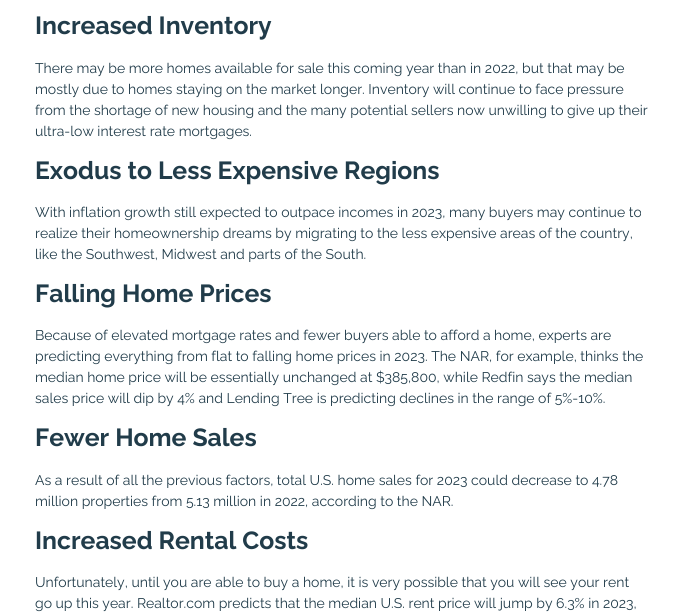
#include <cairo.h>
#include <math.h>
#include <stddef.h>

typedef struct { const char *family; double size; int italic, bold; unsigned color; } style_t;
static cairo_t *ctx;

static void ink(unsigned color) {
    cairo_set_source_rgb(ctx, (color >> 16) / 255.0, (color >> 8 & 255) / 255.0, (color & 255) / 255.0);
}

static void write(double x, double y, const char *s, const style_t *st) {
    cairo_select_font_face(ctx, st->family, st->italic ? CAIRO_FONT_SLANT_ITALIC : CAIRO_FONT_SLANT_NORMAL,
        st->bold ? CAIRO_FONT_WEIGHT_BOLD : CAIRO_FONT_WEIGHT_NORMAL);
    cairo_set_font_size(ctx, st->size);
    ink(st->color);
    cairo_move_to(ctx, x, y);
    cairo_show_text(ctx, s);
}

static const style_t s1 = {"Raleway", 24.75, 0, 1, 0x213c4a};
static const style_t s2 = {"Raleway", 14, 0, 0, 0x213c4a};

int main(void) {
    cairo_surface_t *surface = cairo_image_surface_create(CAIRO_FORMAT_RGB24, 683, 614);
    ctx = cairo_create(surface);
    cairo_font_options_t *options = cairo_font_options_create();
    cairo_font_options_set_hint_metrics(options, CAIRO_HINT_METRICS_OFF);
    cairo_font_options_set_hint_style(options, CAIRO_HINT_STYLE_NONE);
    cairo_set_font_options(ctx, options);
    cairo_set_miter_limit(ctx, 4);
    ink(0xffffff);
    cairo_paint(ctx);
    write(35, 34, "Increased Inventory", &s1);
    write(35, 73, "There may be more homes available for sale this coming year than in 2022, but that may be", &s2);
    write(35, 94, "mostly due to homes staying on the market longer. Inventory will continue to face pressure", &s2);
    write(35, 115, "from the shortage of new housing and the many potential sellers now unwilling to give up their", &s2);
    write(35, 136, "ultra-low interest rate mortgages.", &s2);
    write(35, 179, "Exodus to Less Expensive Regions", &s1);
    write(35, 217, "With inflation growth still expected to outpace incomes in 2023, many buyers may continue to", &s2);
    write(35, 238, "realize their homeownership dreams by migrating to the less expensive areas of the country,", &s2);
    write(35, 259, "like the Southwest, Midwest and parts of the South.", &s2);
    write(35, 302, "Falling Home Prices", &s1);
    write(35, 340, "Because of elevated mortgage rates and fewer buyers able to afford a home, experts are", &s2);
    write(35, 361, "predicting everything from flat to falling home prices in 2023. The NAR, for example, thinks the", &s2);
    write(35, 382, "median home price will be essentially unchanged at $385,800, while Redfin says the median", &s2);
    write(35, 403, "sales price will dip by 4% and Lending Tree is predicting declines in the range of 5%-10%.", &s2);
    write(35, 446, "Fewer Home Sales", &s1);
    write(35, 485, "As a result of all the previous factors, total U.S. home sales for 2023 could decrease to 4.78", &s2);
    write(35, 506, "million properties from 5.13 million in 2022, according to the NAR.", &s2);
    write(35, 549, "Increased Rental Costs", &s1);
    write(35, 587, "Unfortunately, until you are able to buy a home, it is very possible that you will see your rent", &s2);
    write(35, 608, "go up this year. Realtor.com predicts that the median U.S. rent price will jump by 6.3% in 2023,", &s2);
    cairo_surface_write_to_png(surface, "screenshot.png");
    cairo_font_options_destroy(options);
    cairo_destroy(ctx);
    cairo_surface_destroy(surface);
    return 0;
}
